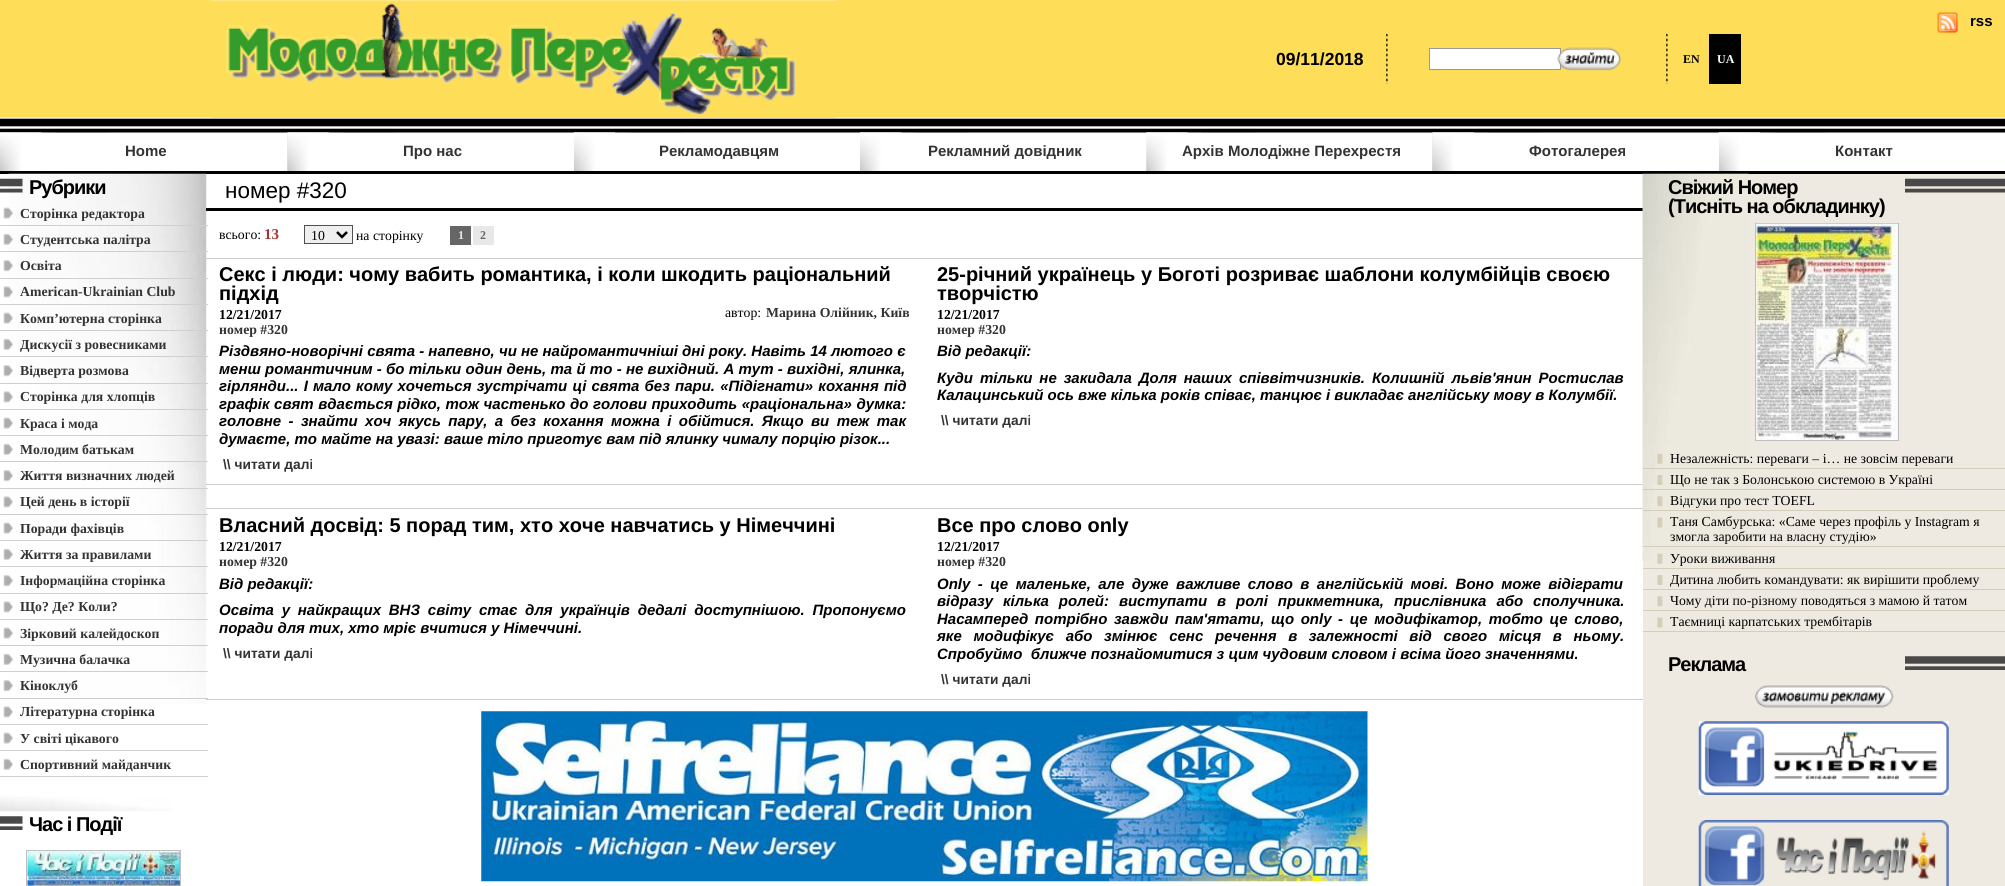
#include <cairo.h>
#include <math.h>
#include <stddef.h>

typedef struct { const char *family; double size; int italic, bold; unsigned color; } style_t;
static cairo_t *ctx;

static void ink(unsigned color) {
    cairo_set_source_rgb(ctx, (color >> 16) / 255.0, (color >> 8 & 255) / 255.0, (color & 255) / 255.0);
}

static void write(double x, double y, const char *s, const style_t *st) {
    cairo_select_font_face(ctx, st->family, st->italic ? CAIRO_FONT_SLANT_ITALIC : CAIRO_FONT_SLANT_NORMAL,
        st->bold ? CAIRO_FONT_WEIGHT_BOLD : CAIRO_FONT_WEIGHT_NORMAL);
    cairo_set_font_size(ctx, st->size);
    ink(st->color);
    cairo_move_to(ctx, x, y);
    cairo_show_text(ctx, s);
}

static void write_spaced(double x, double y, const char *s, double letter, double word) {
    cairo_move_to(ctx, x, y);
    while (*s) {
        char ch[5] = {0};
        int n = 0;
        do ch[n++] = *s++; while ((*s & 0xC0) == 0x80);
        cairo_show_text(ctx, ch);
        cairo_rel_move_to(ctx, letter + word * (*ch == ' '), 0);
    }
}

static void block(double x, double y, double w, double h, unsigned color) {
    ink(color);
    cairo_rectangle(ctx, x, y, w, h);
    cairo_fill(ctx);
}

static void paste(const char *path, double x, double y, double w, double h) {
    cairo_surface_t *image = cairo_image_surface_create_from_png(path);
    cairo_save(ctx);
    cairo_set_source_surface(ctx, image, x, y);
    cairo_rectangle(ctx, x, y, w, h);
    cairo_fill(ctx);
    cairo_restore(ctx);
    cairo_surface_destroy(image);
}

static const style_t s1 = {"Liberation Sans", 15, 0, 1, 0x000000};
static const style_t s2 = {"Liberation Sans", 17.5, 0, 1, 0x000000};
static const style_t s3 = {"Liberation Serif", 12, 0, 1, 0x000000};
static const style_t s4 = {"Liberation Serif", 12, 0, 1, 0xffffff};
static const style_t s5 = {"Liberation Sans", 15, 0, 1, 0x333333};
static const style_t s6 = {"Liberation Serif", 13.75, 0, 1, 0x333333};
static const style_t s7 = {"Liberation Sans", 22.5, 0, 0, 0x000000};
static const style_t s8 = {"Liberation Serif", 13.75, 0, 0, 0x000000};
static const style_t s9 = {"Liberation Serif", 15, 0, 1, 0xaf3030};
static const style_t s10 = {"Liberation Serif", 12, 0, 1, 0xe8e8e8};
static const style_t s11 = {"Liberation Serif", 12, 0, 1, 0x666666};
static const style_t s12 = {"Liberation Sans", 20, 0, 1, 0x000000};
static const style_t s13 = {"Liberation Serif", 13.75, 0, 1, 0x000000};
static const style_t s14 = {"Liberation Sans", 15, 1, 1, 0x000000};
static const style_t s15 = {"Liberation Sans", 13.75, 0, 1, 0x333333};

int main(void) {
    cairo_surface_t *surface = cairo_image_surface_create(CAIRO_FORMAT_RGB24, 2005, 886);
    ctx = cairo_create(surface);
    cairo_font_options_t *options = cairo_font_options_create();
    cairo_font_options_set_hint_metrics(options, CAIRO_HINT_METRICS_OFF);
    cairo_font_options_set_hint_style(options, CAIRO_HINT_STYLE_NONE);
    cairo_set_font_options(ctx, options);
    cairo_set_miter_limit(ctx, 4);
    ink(0xffffff);
    cairo_paint(ctx);
    block(0, 0, 2005, 118, 0xfede58);
    paste("pic1.png", 1937, 12, 21, 21);
    write(1970, 26, "rss", &s1);
    paste("pic6.png", 0, 117, 2005, 16);
    paste("pic2.png", 211, 0, 626, 118);
    paste("pic3.png", 211, 0, 626, 118);
    paste("pic4.png", 1386, 33, 2, 51);
    write(1276, 65, "09/11/2018", &s2);
    paste("pic4.png", 1666, 33, 2, 51);
    ink(0xffffff);
    cairo_rectangle(ctx, 1429.5, 48.5, 131, 21);
    cairo_fill_preserve(ctx);
    ink(0x999999);
    cairo_set_line_width(ctx, 1);
    cairo_stroke(ctx);
    paste("pic5.png", 1557, 47, 65, 24);
    write(1683, 63, "EN", &s3);
    block(1709, 34, 32, 50, 0x000000);
    write(1717, 63, "UA", &s4);
    paste("pic7.png", 0, 132, 109, 1);
    paste("pic8.png", 0, 132, 42, 39);
    write(125, 156, "Home", &s5);
    paste("pic9.png", 287, 132, 109, 39);
    paste("pic11.png", 573, 132, 109, 1);
    paste("pic12.png", 573, 132, 42, 39);
    block(573, 133, 1, 41, 0xffffff);
    block(328, 133, 68, 38, 0xffffff);
    paste("pic10.png", 287, 132, 42, 39);
    write(403, 156, "Про нас", &s5);
    write(659, 156, "Рекламодавцям", &s5);
    paste("pic7.png", 860, 132, 109, 1);
    paste("pic8.png", 860, 132, 42, 39);
    write(928, 156, "Рекламний довідник", &s5);
    paste("pic13.png", 1146, 132, 109, 1);
    paste("pic14.png", 1146, 132, 42, 39);
    write(1182, 156, "Архів Молодiжне Перехрестя", &s5);
    paste("pic15.png", 1432, 132, 109, 39);
    paste("pic11.png", 1718, 132, 109, 1);
    paste("pic17.png", 1718, 132, 42, 39);
    block(1718, 133, 1, 41, 0xffffff);
    block(1473, 133, 68, 38, 0xffffff);
    paste("pic16.png", 1432, 132, 42, 39);
    write(1529, 156, "Фотогалерея", &s5);
    block(0, 171, 2005, 3, 0x000000);
    write(1835, 156, "Контакт", &s5);
    paste("pic18.png", 8, 173, 199, 531);
    paste("pic19.png", 0, 178, 23, 15);
    cairo_set_font_size(ctx, 20);
    ink(0x000000);
    write_spaced(29, 194, "Рубрики", -1, 0);
    paste("pic20.png", 3, 207, 10, 12);
    write(20, 218, "Сторінка редактора", &s6);
    block(0, 225, 208, 1, 0xcfcfcf);
    paste("pic21.png", 3, 233, 10, 12);
    write(20, 244, "Студентська палітра", &s6);
    block(0, 251, 208, 1, 0xcfcfcf);
    paste("pic22.png", 3, 260, 10, 12);
    write(20, 270, "Освіта", &s6);
    block(0, 278, 208, 1, 0xcfcfcf);
    paste("pic23.png", 3, 286, 10, 12);
    write(20, 296, "American-Ukrainian Club", &s6);
    block(0, 304, 208, 1, 0xcfcfcf);
    paste("pic24.png", 3, 312, 10, 12);
    write(20, 323, "Комп’ютерна сторінка", &s6);
    block(0, 330, 208, 1, 0xcfcfcf);
    paste("pic25.png", 3, 338, 10, 12);
    write(20, 349, "Дискусії з ровесниками", &s6);
    block(0, 356, 208, 1, 0xcfcfcf);
    paste("pic26.png", 3, 365, 10, 12);
    write(20, 375, "Відверта розмова", &s6);
    block(0, 383, 208, 1, 0xcfcfcf);
    paste("pic27.png", 3, 391, 10, 12);
    write(20, 401, "Сторінка для хлопців", &s6);
    block(0, 409, 208, 1, 0xcfcfcf);
    paste("pic28.png", 3, 417, 10, 12);
    write(20, 428, "Краса і мода", &s6);
    block(0, 435, 208, 1, 0xcfcfcf);
    paste("pic29.png", 3, 443, 10, 12);
    write(20, 454, "Молодим батькам", &s6);
    block(0, 461, 208, 1, 0xcfcfcf);
    paste("pic26.png", 3, 470, 10, 12);
    write(20, 480, "Життя визначних людей", &s6);
    block(0, 488, 208, 1, 0xcfcfcf);
    paste("pic27.png", 3, 496, 10, 12);
    write(20, 506, "Цей день в історії", &s6);
    block(0, 514, 208, 1, 0xcfcfcf);
    paste("pic28.png", 3, 522, 10, 12);
    write(20, 533, "Поради фахівців", &s6);
    block(0, 540, 208, 1, 0xcfcfcf);
    paste("pic29.png", 3, 548, 10, 12);
    write(20, 559, "Життя за правилами", &s6);
    block(0, 566, 208, 1, 0xcfcfcf);
    paste("pic26.png", 3, 575, 10, 12);
    write(20, 585, "Інформаційна сторінка", &s6);
    block(0, 593, 208, 1, 0xcfcfcf);
    paste("pic27.png", 3, 601, 10, 12);
    write(20, 611, "Що? Де? Коли?", &s6);
    block(0, 619, 208, 1, 0xcfcfcf);
    paste("pic28.png", 3, 627, 10, 12);
    write(20, 638, "Зірковий калейдоскоп", &s6);
    block(0, 645, 208, 1, 0xcfcfcf);
    paste("pic29.png", 3, 653, 10, 12);
    write(20, 664, "Музична балачка", &s6);
    block(0, 671, 208, 1, 0xcfcfcf);
    paste("pic26.png", 3, 680, 10, 12);
    write(20, 690, "Кіноклуб", &s6);
    block(0, 698, 208, 1, 0xcfcfcf);
    paste("pic30.png", 3, 706, 10, 12);
    write(20, 716, "Літературна сторінка", &s6);
    block(0, 724, 208, 1, 0xcfcfcf);
    paste("pic31.png", 3, 732, 10, 12);
    write(20, 743, "У світі цікавого", &s6);
    block(0, 750, 208, 1, 0xcfcfcf);
    paste("pic32.png", 3, 758, 10, 12);
    write(20, 769, "Спортивний майданчик", &s6);
    block(0, 776, 208, 1, 0xcfcfcf);
    paste("pic33.png", 0, 796, 171, 16);
    paste("pic34.png", 0, 816, 23, 14);
    cairo_select_font_face(ctx, "Liberation Sans", CAIRO_FONT_SLANT_NORMAL, CAIRO_FONT_WEIGHT_BOLD);
    cairo_set_font_size(ctx, 20);
    ink(0x000000);
    write_spaced(29, 831, "Час i Події", -1, 0);
    cairo_rectangle(ctx, 26.5, 850.5, 154, 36);
    ink(0xbfbfbf);
    cairo_stroke(ctx);
    paste("pic35.png", 27, 851, 153, 35);
    block(206, 208, 1437, 3, 0x000000);
    write(225, 198, "номер #320", &s7);
    write(219, 239, "всього:", &s8);
    write(264, 239, "13", &s9);
    ink(0xefefef);
    cairo_rectangle(ctx, 304.5, 225.5, 48, 18);
    cairo_fill_preserve(ctx);
    ink(0x505050);
    cairo_stroke(ctx);
    cairo_new_path(ctx);
    cairo_move_to(ctx, 337, 232);
    cairo_line_to(ctx, 342, 237);
    cairo_line_to(ctx, 347, 232);
    ink(0x000000);
    cairo_set_line_width(ctx, 2.5);
    cairo_stroke(ctx);
    write(311, 240, "10", &s8);
    write(356, 240, "на сторінку", &s8);
    block(450, 226, 21, 19, 0x666666);
    write(458, 239, "1", &s10);
    block(473, 226, 21, 19, 0xe8e8e8);
    write(480, 239, "2", &s11);
    write(219, 281, "Секс і люди: чому вабить романтика, і коли шкодить раціональний", &s12);
    write(219, 300, "підхід", &s12);
    write(219, 319, "12/21/2017", &s13);
    write(219, 334, "номер #320", &s6);
    write(725, 317, "автор:", &s8);
    write(766, 317, "Марина Олійник, Київ", &s6);
    write(219, 356, "Різдвяно-новорічні свята - напевно, чи не найромантичніші дні року. Навіть 14 лютого є", &s14);
    write_spaced(219, 374, "менш романтичним - бо тільки один день, та й то - не вихідний. А тут - вихідні, ялинка,", 0, 0.1);
    write_spaced(219, 391, "гірлянди... І мало кому хочеться зустрічати ці свята без пари. «Підігнати» кохання під", 0, 1);
    write_spaced(219, 409, "графік свят вдається рідко, тож частенько до голови приходить «раціональна» думка:", 0, 0.4);
    write_spaced(219, 426, "головне - знайти хоч якусь пару, а без кохання можна і обійтися. Якщо ви теж так", 0, 3.25);
    write(219, 444, "думаєте, то майте на увазі: ваше тіло приготує вам під ялинку чималу порцію різок...", &s14);
    write(223, 469, "\\\\ читати далi", &s15);
    block(206, 258, 1438, 1, 0xcccccc);
    write(937, 281, "25-річний українець у Боготі розриває шаблони колумбійців своєю", &s12);
    write(937, 300, "творчістю", &s12);
    write(937, 319, "12/21/2017", &s13);
    write(937, 334, "номер #320", &s6);
    write(937, 356, "Від редакції:", &s14);
    write_spaced(937, 383, "Куди тільки не закидала Доля наших співвітчизників. Колишній львів'янин Ростислав", 0, 2.75);
    write(937, 400, "Калацинський ось вже кілька років співає, танцює і викладає англійську мову в Колумбії.", &s14);
    write(941, 425, "\\\\ читати далi", &s15);
    block(206, 484, 1438, 1, 0xcccccc);
    write(219, 532, "Власний досвід: 5 порад тим, хто хоче навчатись у Німеччині", &s12);
    write(219, 551, "12/21/2017", &s13);
    write(219, 566, "номер #320", &s6);
    write(219, 589, "Від редакції:", &s14);
    write_spaced(219, 615, "Освіта у найкращих ВНЗ світу стає для українців дедалі доступнішою. Пропонуємо", 0, 3.6);
    write(219, 633, "поради для тих, хто мріє вчитися у Німеччині.", &s14);
    write(223, 658, "\\\\ читати далi", &s15);
    block(206, 508, 1438, 1, 0xcccccc);
    write(937, 532, "Все про слово only", &s12);
    write(937, 551, "12/21/2017", &s13);
    write(937, 566, "номер #320", &s6);
    cairo_select_font_face(ctx, "Liberation Sans", CAIRO_FONT_SLANT_ITALIC, CAIRO_FONT_WEIGHT_BOLD);
    cairo_set_font_size(ctx, 15);
    ink(0x000000);
    write_spaced(937, 589, "Only - це маленьке, але дуже важливе слово в англійській мові. Воно може відіграти", 0, 3.25);
    write_spaced(937, 606, "відразу кілька ролей: виступати в ролі прикметника, прислівника або сполучника.", 0, 5.75);
    write_spaced(937, 624, "Насамперед потрібно завжди пам'ятати, що only - це модифікатор, тобто це слово,", 0, 2.4);
    write_spaced(937, 641, "яке модифікує або змінює сенс речення в залежності від свого місця в ньому.", 0, 7.5);
    write(937, 659, "Спробуймо  ближче познайомитися з цим чудовим словом і всіма його значеннями.", &s14);
    write(941, 684, "\\\\ читати далi", &s15);
    block(206, 699, 1438, 1, 0xcccccc);
    paste("pic36.png", 481, 711, 887, 171);
    block(1643, 174, 362, 712, 0xeeeae1);
    paste("pic37.png", 1642, 173, 107, 389);
    cairo_set_font_size(ctx, 20);
    ink(0x000000);
    write_spaced(1668, 194, "Свіжий Номер", -1, 0);
    write_spaced(1668, 213, "(Тисніть на обкладинку)", -1, 0);
    paste("pic38.png", 1905, 178, 100, 15);
    cairo_rectangle(ctx, 1755.5, 223.5, 143, 217);
    ink(0xbfbfbf);
    cairo_set_line_width(ctx, 1);
    cairo_stroke(ctx);
    paste("pic39.png", 1756, 223, 142, 217);
    paste("pic40.png", 1657, 453, 6, 11);
    block(1643, 468, 362, 1, 0xd4cdb9);
    write(1670, 463, "Незалежність: переваги – і… не зовсім переваги", &s8);
    paste("pic41.png", 1657, 475, 6, 10);
    block(1643, 489, 362, 1, 0xd4cdb9);
    write(1670, 484, "Що не так з Болонською системою в Україні", &s8);
    paste("pic42.png", 1657, 496, 6, 11);
    block(1643, 510, 362, 1, 0xd4cdb9);
    write(1670, 505, "Відгуки про тест TOEFL", &s8);
    paste("pic43.png", 1657, 517, 6, 11);
    block(1643, 546, 362, 1, 0xd4cdb9);
    write(1670, 526, "Таня Самбурська: «Саме через профіль у Instagram я", &s8);
    write(1670, 541, "змогла заробити на власну студію»", &s8);
    paste("pic44.png", 1657, 553, 6, 11);
    block(1643, 568, 362, 1, 0xd4cdb9);
    write(1670, 563, "Уроки виживання", &s8);
    paste("pic45.png", 1657, 575, 6, 10);
    block(1643, 589, 362, 1, 0xd4cdb9);
    write(1670, 584, "Дитина любить командувати: як вирішити проблему", &s8);
    paste("pic46.png", 1657, 596, 6, 11);
    block(1643, 610, 362, 1, 0xd4cdb9);
    write(1670, 605, "Чому діти по-різному поводяться з мамою й татом", &s8);
    paste("pic47.png", 1657, 617, 6, 11);
    block(1643, 631, 362, 1, 0xd4cdb9);
    write(1670, 626, "Таємниці карпатських трембітарів", &s8);
    cairo_select_font_face(ctx, "Liberation Sans", CAIRO_FONT_SLANT_NORMAL, CAIRO_FONT_WEIGHT_BOLD);
    cairo_set_font_size(ctx, 20);
    write_spaced(1668, 671, "Реклама", -1, 0);
    paste("pic48.png", 1905, 656, 100, 14);
    paste("pic49.png", 1755, 685, 139, 23);
    paste("pic50.png", 1698, 721, 251, 74);
    paste("pic51.png", 1698, 820, 251, 66);
    cairo_surface_write_to_png(surface, "screenshot.png");
    cairo_font_options_destroy(options);
    cairo_destroy(ctx);
    cairo_surface_destroy(surface);
    return 0;
}
